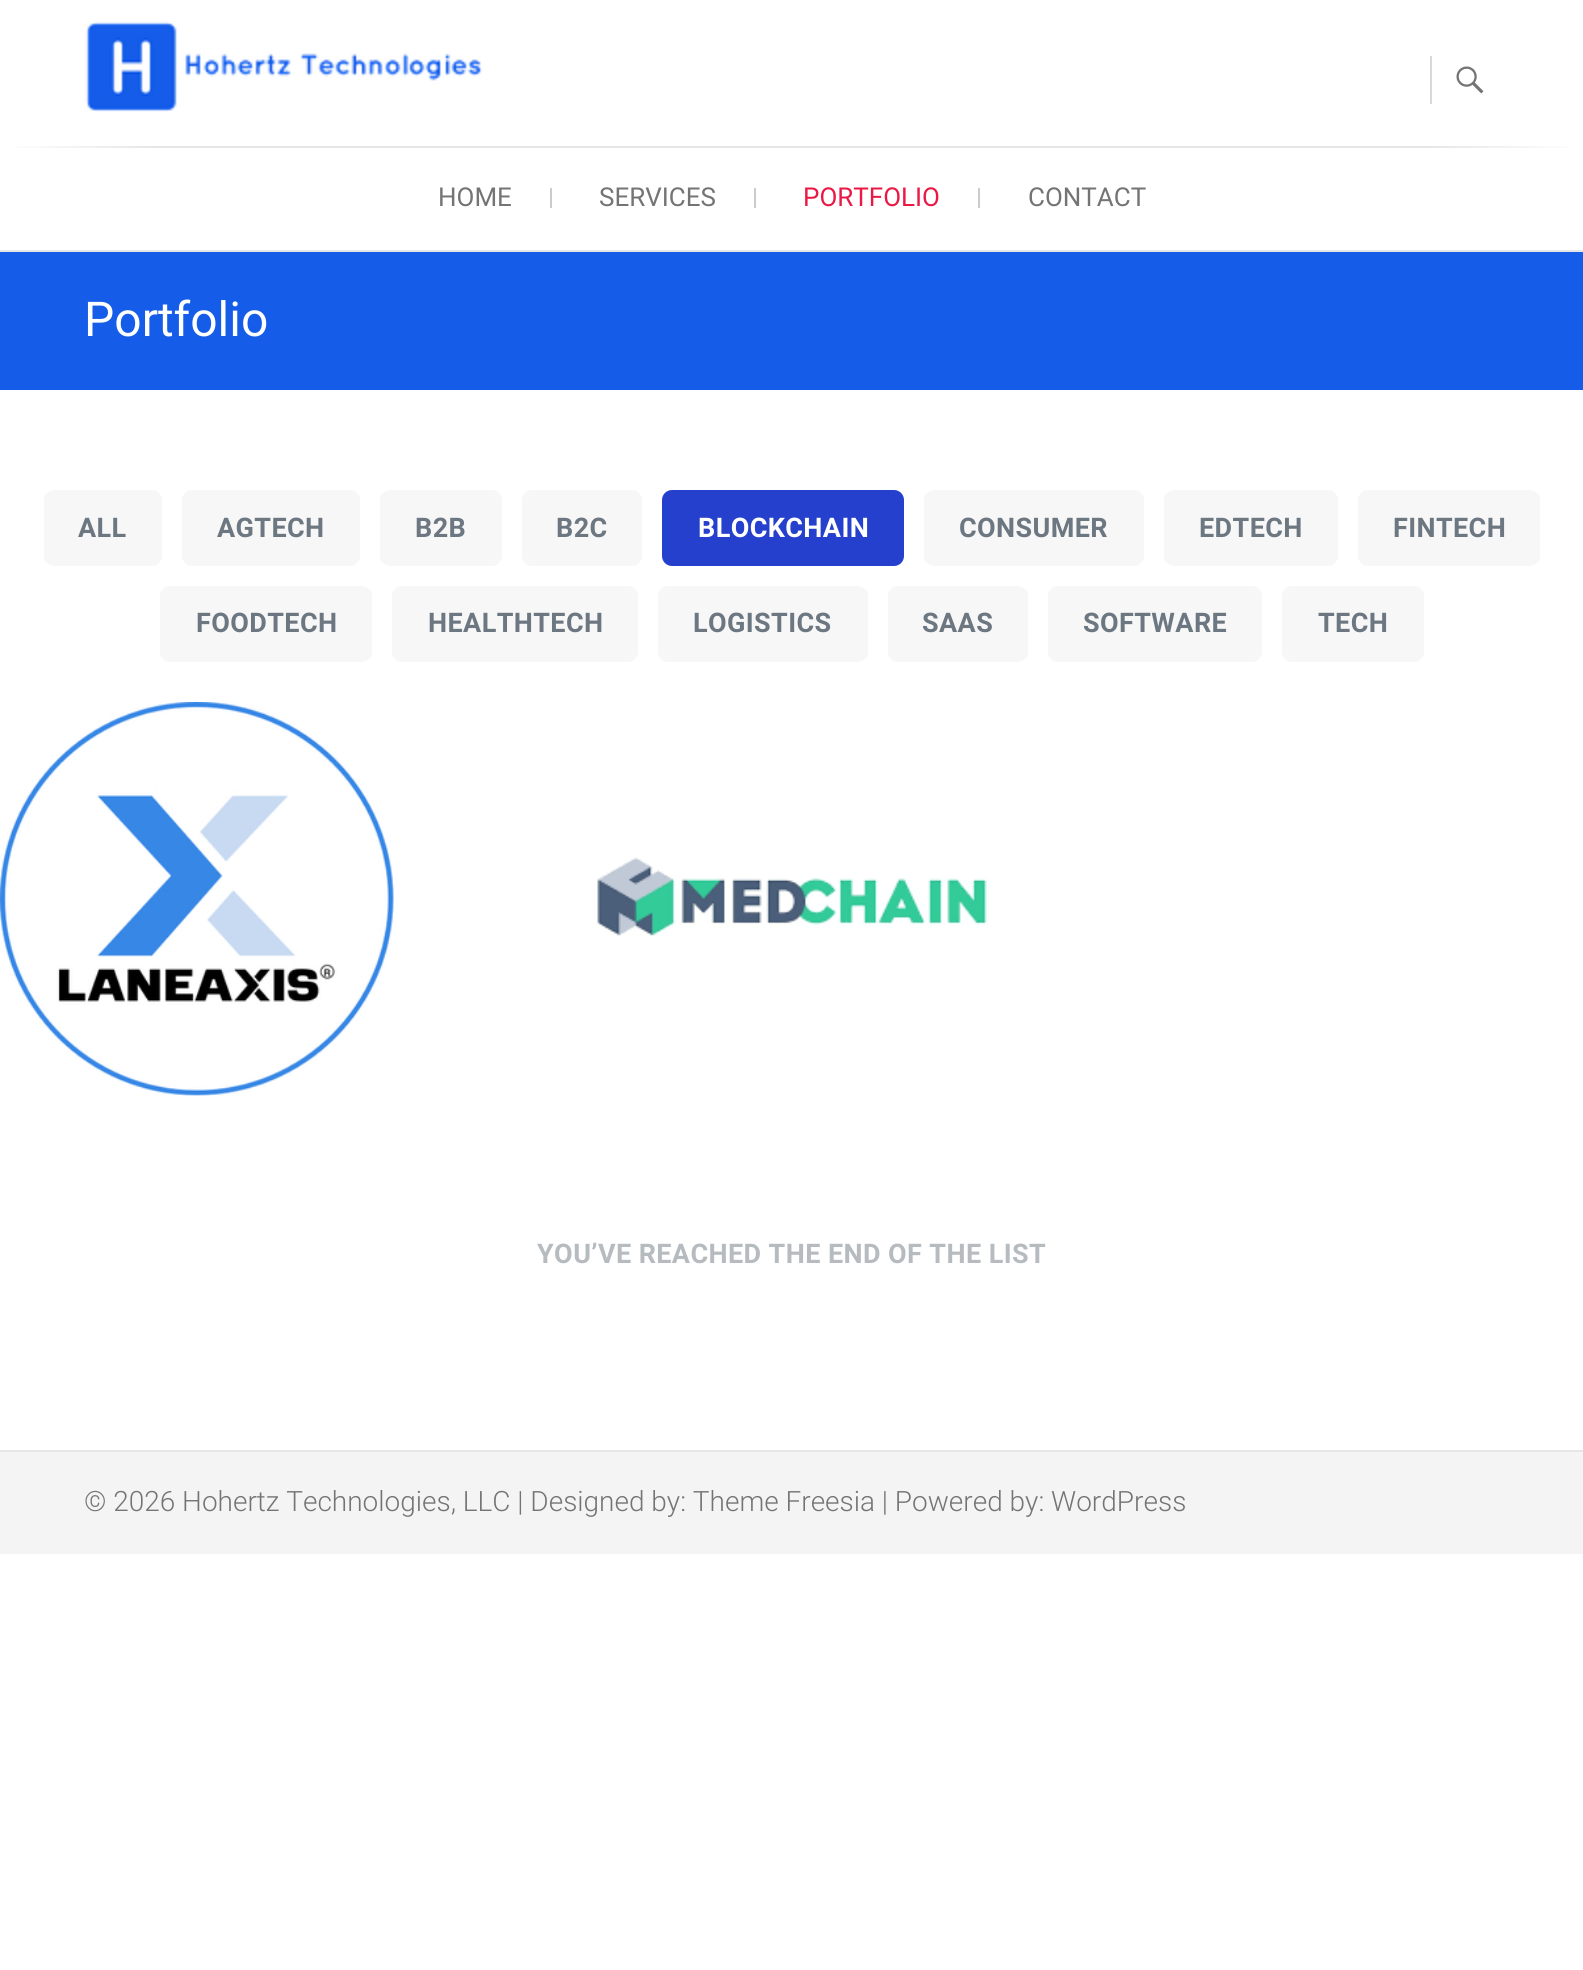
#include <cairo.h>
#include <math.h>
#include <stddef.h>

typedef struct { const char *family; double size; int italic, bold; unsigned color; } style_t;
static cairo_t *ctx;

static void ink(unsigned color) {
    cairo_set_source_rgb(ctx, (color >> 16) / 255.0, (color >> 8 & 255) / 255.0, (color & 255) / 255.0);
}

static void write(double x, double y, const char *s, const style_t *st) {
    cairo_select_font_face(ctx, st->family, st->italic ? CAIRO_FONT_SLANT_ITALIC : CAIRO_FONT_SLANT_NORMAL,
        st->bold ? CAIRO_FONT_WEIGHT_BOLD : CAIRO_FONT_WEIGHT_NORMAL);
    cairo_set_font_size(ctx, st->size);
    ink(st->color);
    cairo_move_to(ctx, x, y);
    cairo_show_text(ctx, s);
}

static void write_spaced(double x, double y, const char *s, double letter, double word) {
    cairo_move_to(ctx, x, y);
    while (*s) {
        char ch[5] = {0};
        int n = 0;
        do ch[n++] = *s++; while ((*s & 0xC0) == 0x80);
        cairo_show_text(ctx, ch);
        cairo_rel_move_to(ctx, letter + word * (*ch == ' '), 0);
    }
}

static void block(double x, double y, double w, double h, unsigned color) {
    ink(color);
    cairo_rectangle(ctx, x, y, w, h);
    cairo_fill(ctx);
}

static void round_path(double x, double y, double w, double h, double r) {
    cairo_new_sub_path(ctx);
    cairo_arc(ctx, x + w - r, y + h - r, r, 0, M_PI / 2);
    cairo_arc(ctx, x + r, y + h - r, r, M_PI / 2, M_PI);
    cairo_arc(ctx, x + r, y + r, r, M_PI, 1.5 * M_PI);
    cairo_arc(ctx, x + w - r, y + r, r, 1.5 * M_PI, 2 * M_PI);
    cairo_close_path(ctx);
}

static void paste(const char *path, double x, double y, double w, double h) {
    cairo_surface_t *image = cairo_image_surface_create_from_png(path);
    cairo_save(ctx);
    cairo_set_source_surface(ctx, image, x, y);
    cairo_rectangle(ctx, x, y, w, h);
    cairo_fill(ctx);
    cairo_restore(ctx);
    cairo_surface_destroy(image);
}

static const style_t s1 = {"Roboto", 26, 0, 0, 0x747474};
static const style_t s2 = {"Roboto", 26, 0, 0, 0xe91844};
static const style_t s3 = {"Roboto", 48, 0, 0, 0xffffff};
static const style_t s4 = {"Roboto Light", 28, 0, 0, 0x747474};

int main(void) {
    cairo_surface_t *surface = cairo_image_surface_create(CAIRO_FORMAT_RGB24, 1583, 1970);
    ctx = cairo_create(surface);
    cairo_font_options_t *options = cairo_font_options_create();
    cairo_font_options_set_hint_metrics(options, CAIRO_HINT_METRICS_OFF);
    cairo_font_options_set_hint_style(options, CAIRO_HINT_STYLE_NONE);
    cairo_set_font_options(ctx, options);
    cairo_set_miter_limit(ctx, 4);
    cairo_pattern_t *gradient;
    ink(0xffffff);
    cairo_paint(ctx);
    paste("pic1.png", 85, 21, 398, 91);
    block(1430, 56, 2, 48, 0xd9d9d9);
    paste("pic2.png", 1456, 66, 28, 28);
    block(0, 250, 1583, 2, 0xe6e6e6);
    gradient = cairo_pattern_create_linear(0, 147, 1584, 147);
    cairo_pattern_add_color_stop_rgba(gradient, 0, 1, 1, 1, 1);
    cairo_pattern_add_color_stop_rgba(gradient, 0.1, 0.902, 0.902, 0.902, 1);
    cairo_pattern_add_color_stop_rgba(gradient, 0.9, 0.902, 0.902, 0.902, 1);
    cairo_pattern_add_color_stop_rgba(gradient, 1, 1, 1, 1, 1);
    cairo_set_source(ctx, gradient);
    cairo_pattern_destroy(gradient);
    cairo_rectangle(ctx, 16, 146, 1552, 2);
    cairo_fill(ctx);
    write(438, 206, "HOME", &s1);
    block(550, 188, 2, 20, 0xcccccc);
    write(599, 206, "SERVICES", &s1);
    block(754, 188, 2, 20, 0xcccccc);
    write(803, 206, "PORTFOLIO", &s2);
    block(978, 188, 2, 20, 0xcccccc);
    write(1028, 206, "CONTACT", &s1);
    block(0, 252, 1583, 138, 0x155de9);
    write(84, 336, "Portfolio", &s3);
    ink(0xf7f7f7);
    round_path(44, 490, 118, 76, 10);
    cairo_fill(ctx);
    cairo_select_font_face(ctx, "Roboto", CAIRO_FONT_SLANT_NORMAL, CAIRO_FONT_WEIGHT_BOLD);
    cairo_set_font_size(ctx, 27);
    ink(0x6c7781);
    write_spaced(78, 537, "ALL", 0.4, 0);
    ink(0xf7f7f7);
    round_path(182, 490, 178, 76, 10);
    cairo_fill(ctx);
    ink(0x6c7781);
    write_spaced(217, 537, "AGTECH", 0.4, 0);
    ink(0xf7f7f7);
    round_path(380, 490, 122, 76, 10);
    cairo_fill(ctx);
    ink(0x6c7781);
    write_spaced(415, 537, "B2B", 0.4, 0);
    ink(0xf7f7f7);
    round_path(522, 490, 120, 76, 10);
    cairo_fill(ctx);
    ink(0x6c7781);
    write_spaced(556, 537, "B2C", 0.4, 0);
    ink(0x2540cc);
    round_path(662, 490, 242, 76, 10);
    cairo_fill(ctx);
    ink(0xffffff);
    write_spaced(698, 537, "BLOCKCHAIN", 0.4, 0);
    ink(0xf7f7f7);
    round_path(924, 490, 220, 76, 10);
    cairo_fill(ctx);
    ink(0x6c7781);
    write_spaced(959, 537, "CONSUMER", 0.4, 0);
    ink(0xf7f7f7);
    round_path(1164, 490, 174, 76, 10);
    cairo_fill(ctx);
    ink(0x6c7781);
    write_spaced(1199, 537, "EDTECH", 0.4, 0);
    ink(0xf7f7f7);
    round_path(1358, 490, 182, 76, 10);
    cairo_fill(ctx);
    ink(0x6c7781);
    write_spaced(1393, 537, "FINTECH", 0.4, 0);
    ink(0xf7f7f7);
    round_path(160, 586, 212, 76, 10);
    cairo_fill(ctx);
    ink(0x6c7781);
    write_spaced(196, 632, "FOODTECH", 0.4, 0);
    ink(0xf7f7f7);
    round_path(392, 586, 246, 76, 10);
    cairo_fill(ctx);
    ink(0x6c7781);
    write_spaced(428, 632, "HEALTHTECH", 0.4, 0);
    ink(0xf7f7f7);
    round_path(658, 586, 210, 76, 10);
    cairo_fill(ctx);
    ink(0x6c7781);
    write_spaced(693, 632, "LOGISTICS", 0.4, 0);
    ink(0xf7f7f7);
    round_path(888, 586, 140, 76, 10);
    cairo_fill(ctx);
    ink(0x6c7781);
    write_spaced(922, 632, "SAAS", 0.4, 0);
    ink(0xf7f7f7);
    round_path(1048, 586, 214, 76, 10);
    cairo_fill(ctx);
    ink(0x6c7781);
    write_spaced(1083, 632, "SOFTWARE", 0.4, 0);
    ink(0xf7f7f7);
    round_path(1282, 586, 142, 76, 10);
    cairo_fill(ctx);
    ink(0x6c7781);
    write_spaced(1318, 632, "TECH", 0.4, 0);
    paste("pic3.png", 0, 702, 394, 394);
    paste("pic4.png", 597, 857, 392, 79);
    ink(0xb6bbc0);
    write_spaced(537, 1263, "YOU’VE REACHED THE END OF THE LIST", 0.4, 0);
    block(0, 1450, 1583, 2, 0xe6e6e6);
    block(0, 1452, 1583, 102, 0xf4f4f4);
    write(84, 1511, "© 2026 Hohertz Technologies, LLC | Designed by: Theme Freesia | Powered by: WordPress", &s4);
    cairo_surface_write_to_png(surface, "screenshot.png");
    cairo_font_options_destroy(options);
    cairo_destroy(ctx);
    cairo_surface_destroy(surface);
    return 0;
}
